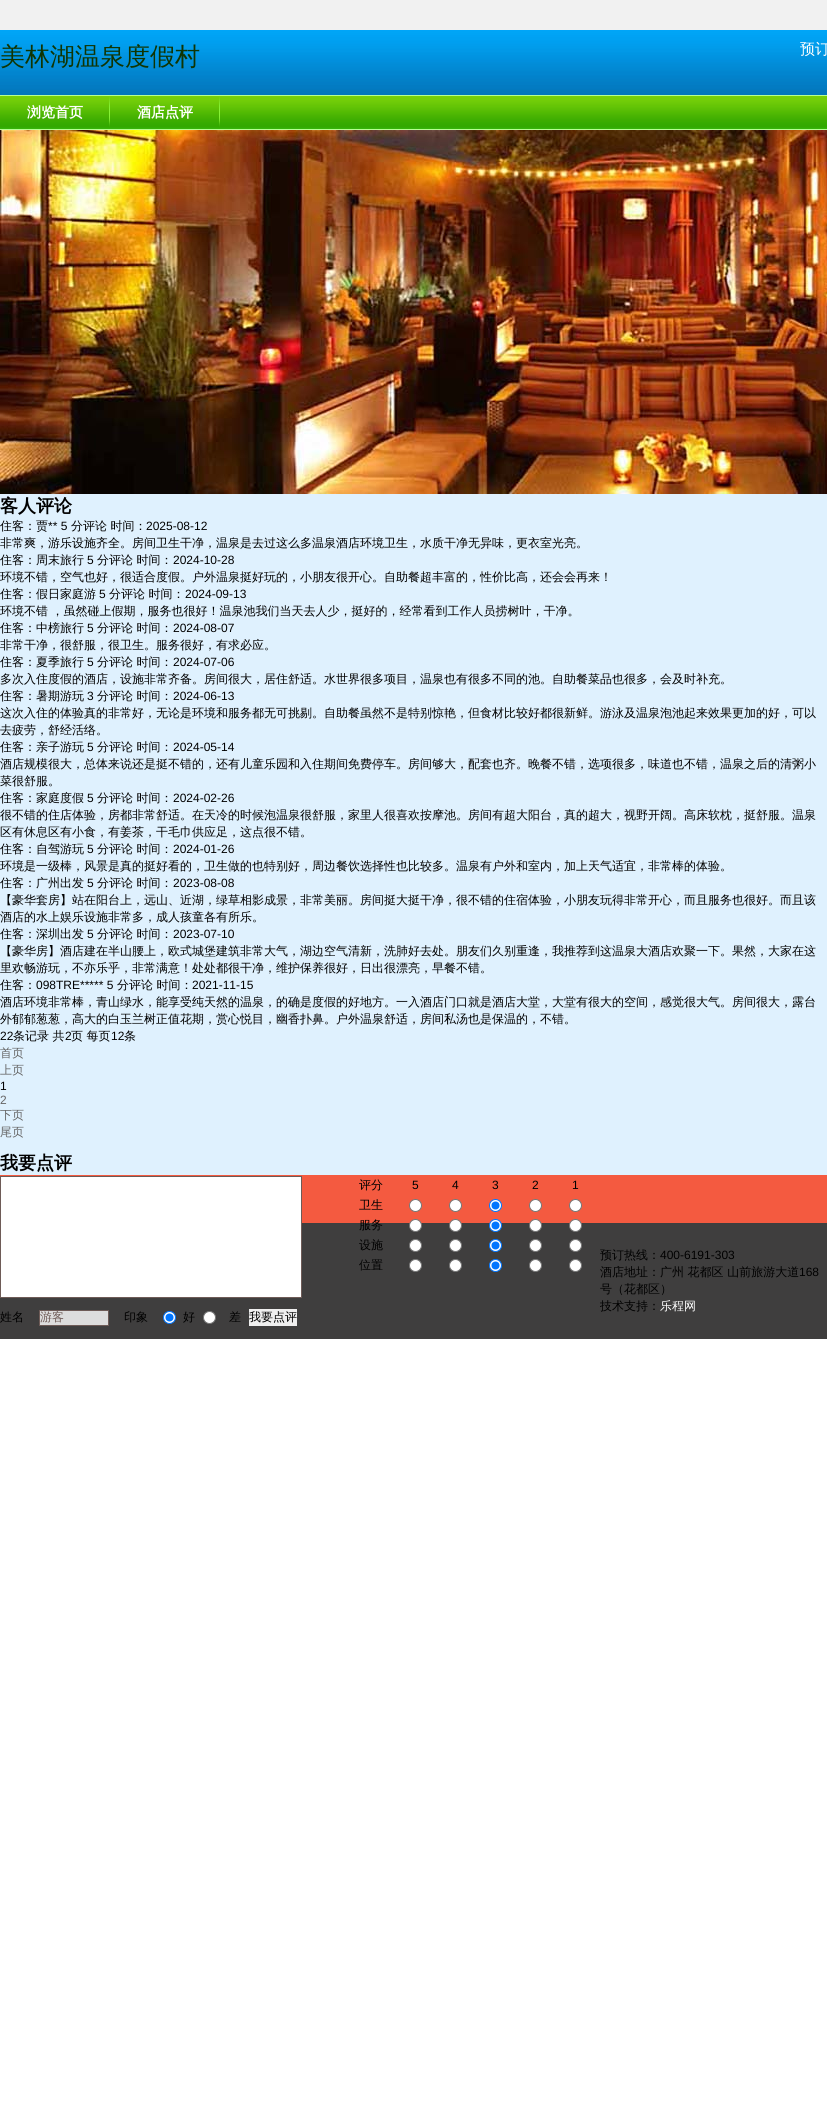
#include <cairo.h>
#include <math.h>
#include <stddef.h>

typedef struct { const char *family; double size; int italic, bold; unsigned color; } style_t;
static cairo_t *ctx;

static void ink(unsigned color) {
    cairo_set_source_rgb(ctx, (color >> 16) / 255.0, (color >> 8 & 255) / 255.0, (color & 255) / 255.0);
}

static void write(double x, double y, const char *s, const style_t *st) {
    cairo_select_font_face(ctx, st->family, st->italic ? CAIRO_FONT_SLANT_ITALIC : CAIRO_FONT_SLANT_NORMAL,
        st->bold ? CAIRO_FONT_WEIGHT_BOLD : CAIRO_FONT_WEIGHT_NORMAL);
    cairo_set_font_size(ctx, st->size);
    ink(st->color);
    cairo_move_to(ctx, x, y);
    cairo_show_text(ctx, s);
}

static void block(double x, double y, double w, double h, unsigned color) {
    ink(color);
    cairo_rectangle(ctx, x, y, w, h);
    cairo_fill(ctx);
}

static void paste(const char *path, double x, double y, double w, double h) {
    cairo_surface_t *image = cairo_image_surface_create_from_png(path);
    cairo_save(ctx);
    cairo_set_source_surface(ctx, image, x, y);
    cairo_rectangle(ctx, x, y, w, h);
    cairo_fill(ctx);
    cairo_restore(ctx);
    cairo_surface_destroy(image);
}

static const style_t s1 = {"WenQuanYi Zen Hei Medium", 25, 0, 0, 0x103503};
static const style_t s2 = {"WenQuanYi Zen Hei Medium", 15, 0, 0, 0xffffff};
static const style_t s3 = {"WenQuanYi Zen Hei", 14, 0, 1, 0xffffff};
static const style_t s4 = {"WenQuanYi Zen Hei", 18, 0, 1, 0x000000};
static const style_t s5 = {"WenQuanYi Zen Hei Medium", 12, 0, 0, 0x000000};
static const style_t s6 = {"Liberation Sans", 12, 0, 0, 0x000000};
static const style_t s7 = {"WenQuanYi Zen Hei Medium", 12, 0, 0, 0x666666};
static const style_t s8 = {"Liberation Sans", 12, 0, 0, 0x666666};
static const style_t s9 = {"WenQuanYi Zen Hei Medium", 12, 0, 0, 0x6e5b57};
static const style_t s10 = {"WenQuanYi Zen Hei Medium", 12, 0, 0, 0xffffff};

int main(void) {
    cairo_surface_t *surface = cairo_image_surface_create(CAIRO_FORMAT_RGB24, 827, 2112);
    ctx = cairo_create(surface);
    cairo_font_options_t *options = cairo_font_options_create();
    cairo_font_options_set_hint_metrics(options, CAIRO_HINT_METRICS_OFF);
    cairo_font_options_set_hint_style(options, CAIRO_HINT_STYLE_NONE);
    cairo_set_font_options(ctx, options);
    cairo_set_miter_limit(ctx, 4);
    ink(0xffffff);
    cairo_paint(ctx);
    block(0, 494, 827, 681, 0xdff1fe);
    paste("pic1.png", 0, 30, 827, 100);
    block(0, 0, 827, 30, 0xf1f1f1);
    write(0, 65, "美林湖温泉度假村", &s1);
    write(800, 54, "预订", &s2);
    paste("pic2.png", 109, 95, 1, 32);
    write(27, 117, "浏览首页", &s3);
    paste("pic2.png", 219, 95, 1, 32);
    write(137, 117, "酒店点评", &s3);
    paste("pic3.png", 0, 130, 827, 364);
    write(0, 512, "客人评论", &s4);
    write(0, 530, "住客：贾", &s5);
    write(48, 530, "** 5", &s6);
    write(71, 530, "分评论 时间：", &s5);
    write(146, 530, "2025-08-12", &s6);
    write(0, 547, "非常爽，游乐设施齐全。房间卫生干净，温泉是去过这么多温泉酒店环境卫生，水质干净无异味，更衣室光亮。", &s5);
    write(0, 564, "住客：周末旅行", &s5);
    write(87, 564, "5", &s6);
    write(97, 564, "分评论 时间：", &s5);
    write(173, 564, "2024-10-28", &s6);
    write(0, 581, "环境不错，空气也好，很适合度假。户外温泉挺好玩的，小朋友很开心。自助餐超丰富的，性价比高，还会会再来！", &s5);
    write(0, 598, "住客：假日家庭游", &s5);
    write(99, 598, "5", &s6);
    write(109, 598, "分评论 时间：", &s5);
    write(185, 598, "2024-09-13", &s6);
    write(0, 615, "环境不错 ，虽然碰上假期，服务也很好！温泉池我们当天去人少，挺好的，经常看到工作人员捞树叶，干净。", &s5);
    write(0, 632, "住客：中榜旅行", &s5);
    write(87, 632, "5", &s6);
    write(97, 632, "分评论 时间：", &s5);
    write(173, 632, "2024-08-07", &s6);
    write(0, 649, "非常干净，很舒服，很卫生。服务很好，有求必应。", &s5);
    write(0, 666, "住客：夏季旅行", &s5);
    write(87, 666, "5", &s6);
    write(97, 666, "分评论 时间：", &s5);
    write(173, 666, "2024-07-06", &s6);
    write(0, 683, "多次入住度假的酒店，设施非常齐备。房间很大，居住舒适。水世界很多项目，温泉也有很多不同的池。自助餐菜品也很多，会及时补充。", &s5);
    write(0, 700, "住客：暑期游玩", &s5);
    write(87, 700, "3", &s6);
    write(97, 700, "分评论 时间：", &s5);
    write(173, 700, "2024-06-13", &s6);
    write(0, 717, "这次入住的体验真的非常好，无论是环境和服务都无可挑剔。自助餐虽然不是特别惊艳，但食材比较好都很新鲜。游泳及温泉泡池起来效果更加的好，可以", &s5);
    write(0, 734, "去疲劳，舒经活络。", &s5);
    write(0, 751, "住客：亲子游玩", &s5);
    write(87, 751, "5", &s6);
    write(97, 751, "分评论 时间：", &s5);
    write(173, 751, "2024-05-14", &s6);
    write(0, 768, "酒店规模很大，总体来说还是挺不错的，还有儿童乐园和入住期间免费停车。房间够大，配套也齐。晚餐不错，选项很多，味道也不错，温泉之后的清粥小", &s5);
    write(0, 785, "菜很舒服。", &s5);
    write(0, 802, "住客：家庭度假", &s5);
    write(87, 802, "5", &s6);
    write(97, 802, "分评论 时间：", &s5);
    write(173, 802, "2024-02-26", &s6);
    write(0, 819, "很不错的住店体验，房都非常舒适。在天冷的时候泡温泉很舒服，家里人很喜欢按摩池。房间有超大阳台，真的超大，视野开阔。高床软枕，挺舒服。温泉", &s5);
    write(0, 836, "区有休息区有小食，有姜茶，干毛巾供应足，这点很不错。", &s5);
    write(0, 853, "住客：自驾游玩", &s5);
    write(87, 853, "5", &s6);
    write(97, 853, "分评论 时间：", &s5);
    write(173, 853, "2024-01-26", &s6);
    write(0, 870, "环境是一级棒，风景是真的挺好看的，卫生做的也特别好，周边餐饮选择性也比较多。温泉有户外和室内，加上天气适宜，非常棒的体验。", &s5);
    write(0, 887, "住客：广州出发", &s5);
    write(87, 887, "5", &s6);
    write(97, 887, "分评论 时间：", &s5);
    write(173, 887, "2023-08-08", &s6);
    write(0, 904, "【豪华套房】站在阳台上，远山、近湖，绿草相影成景，非常美丽。房间挺大挺干净，很不错的住宿体验，小朋友玩得非常开心，而且服务也很好。而且该", &s5);
    write(0, 921, "酒店的水上娱乐设施非常多，成人孩童各有所乐。", &s5);
    write(0, 938, "住客：深圳出发", &s5);
    write(87, 938, "5", &s6);
    write(97, 938, "分评论 时间：", &s5);
    write(173, 938, "2023-07-10", &s6);
    write(0, 955, "【豪华房】酒店建在半山腰上，欧式城堡建筑非常大气，湖边空气清新，洗肺好去处。朋友们久别重逢，我推荐到这温泉大酒店欢聚一下。果然，大家在这", &s5);
    write(0, 972, "里欢畅游玩，不亦乐乎，非常满意！处处都很干净，维护保养很好，日出很漂亮，早餐不错。", &s5);
    write(0, 989, "住客：", &s5);
    write(36, 989, "098TRE***** 5", &s6);
    write(117, 989, "分评论 时间：", &s5);
    write(192, 989, "2021-11-15", &s6);
    write(0, 1006, "酒店环境非常棒，青山绿水，能享受纯天然的温泉，的确是度假的好地方。一入酒店门口就是酒店大堂，大堂有很大的空间，感觉很大气。房间很大，露台", &s5);
    write(0, 1023, "外郁郁葱葱，高大的白玉兰树正值花期，赏心悦目，幽香扑鼻。户外温泉舒适，房间私汤也是保温的，不错。", &s5);
    write(0, 1040, "22", &s6);
    write(13, 1040, "条记录 共", &s5);
    write(65, 1040, "2", &s6);
    write(71, 1040, "页 每页", &s5);
    write(111, 1040, "12", &s6);
    write(124, 1040, "条", &s5);
    write(0, 1057, "首页", &s7);
    write(0, 1074, "上页", &s7);
    write(0, 1090, "1", &s6);
    write(0, 1104, "2", &s8);
    write(0, 1119, "下页", &s7);
    write(0, 1136, "尾页", &s7);
    write(0, 1169, "我要点评", &s4);
    block(0, 1175, 827, 48, 0xf45a40);
    block(0, 1223, 827, 116, 0x3f3e3e);
    ink(0xffffff);
    cairo_rectangle(ctx, 0.5, 1176.5, 301, 121);
    cairo_fill_preserve(ctx);
    ink(0x6e5b57);
    cairo_set_line_width(ctx, 1);
    cairo_stroke(ctx);
    write(359, 1189, "评分", &s5);
    write(412, 1189, "5", &s6);
    write(452, 1189, "4", &s6);
    write(492, 1189, "3", &s6);
    write(532, 1189, "2", &s6);
    write(572, 1189, "1", &s6);
    write(359, 1209, "卫生", &s5);
    ink(0xffffff);
    cairo_new_path(ctx);
    cairo_arc(ctx, 415.5, 1205.5, 6, 0, 2 * M_PI);
    cairo_fill_preserve(ctx);
    ink(0x767676);
    cairo_stroke(ctx);
    ink(0xffffff);
    cairo_arc(ctx, 455.5, 1205.5, 6, 0, 2 * M_PI);
    cairo_fill_preserve(ctx);
    ink(0x767676);
    cairo_stroke(ctx);
    ink(0xffffff);
    cairo_arc(ctx, 495.5, 1205.5, 6, 0, 2 * M_PI);
    cairo_fill_preserve(ctx);
    ink(0x0075ff);
    cairo_stroke(ctx);
    cairo_arc(ctx, 495.5, 1205.5, 4, 0, 2 * M_PI);
    cairo_fill(ctx);
    ink(0xffffff);
    cairo_arc(ctx, 535.5, 1205.5, 6, 0, 2 * M_PI);
    cairo_fill_preserve(ctx);
    ink(0x767676);
    cairo_stroke(ctx);
    ink(0xffffff);
    cairo_arc(ctx, 575.5, 1205.5, 6, 0, 2 * M_PI);
    cairo_fill_preserve(ctx);
    ink(0x767676);
    cairo_stroke(ctx);
    write(359, 1229, "服务", &s5);
    ink(0xffffff);
    cairo_new_path(ctx);
    cairo_arc(ctx, 415.5, 1225.5, 6, 0, 2 * M_PI);
    cairo_fill_preserve(ctx);
    ink(0x767676);
    cairo_stroke(ctx);
    ink(0xffffff);
    cairo_arc(ctx, 455.5, 1225.5, 6, 0, 2 * M_PI);
    cairo_fill_preserve(ctx);
    ink(0x767676);
    cairo_stroke(ctx);
    ink(0xffffff);
    cairo_arc(ctx, 495.5, 1225.5, 6, 0, 2 * M_PI);
    cairo_fill_preserve(ctx);
    ink(0x0075ff);
    cairo_stroke(ctx);
    cairo_arc(ctx, 495.5, 1225.5, 4, 0, 2 * M_PI);
    cairo_fill(ctx);
    ink(0xffffff);
    cairo_arc(ctx, 535.5, 1225.5, 6, 0, 2 * M_PI);
    cairo_fill_preserve(ctx);
    ink(0x767676);
    cairo_stroke(ctx);
    ink(0xffffff);
    cairo_arc(ctx, 575.5, 1225.5, 6, 0, 2 * M_PI);
    cairo_fill_preserve(ctx);
    ink(0x767676);
    cairo_stroke(ctx);
    write(359, 1249, "设施", &s5);
    ink(0xffffff);
    cairo_new_path(ctx);
    cairo_arc(ctx, 415.5, 1245.5, 6, 0, 2 * M_PI);
    cairo_fill_preserve(ctx);
    ink(0x767676);
    cairo_stroke(ctx);
    ink(0xffffff);
    cairo_arc(ctx, 455.5, 1245.5, 6, 0, 2 * M_PI);
    cairo_fill_preserve(ctx);
    ink(0x767676);
    cairo_stroke(ctx);
    ink(0xffffff);
    cairo_arc(ctx, 495.5, 1245.5, 6, 0, 2 * M_PI);
    cairo_fill_preserve(ctx);
    ink(0x0075ff);
    cairo_stroke(ctx);
    cairo_arc(ctx, 495.5, 1245.5, 4, 0, 2 * M_PI);
    cairo_fill(ctx);
    ink(0xffffff);
    cairo_arc(ctx, 535.5, 1245.5, 6, 0, 2 * M_PI);
    cairo_fill_preserve(ctx);
    ink(0x767676);
    cairo_stroke(ctx);
    ink(0xffffff);
    cairo_arc(ctx, 575.5, 1245.5, 6, 0, 2 * M_PI);
    cairo_fill_preserve(ctx);
    ink(0x767676);
    cairo_stroke(ctx);
    write(359, 1269, "位置", &s5);
    ink(0xffffff);
    cairo_new_path(ctx);
    cairo_arc(ctx, 415.5, 1265.5, 6, 0, 2 * M_PI);
    cairo_fill_preserve(ctx);
    ink(0x767676);
    cairo_stroke(ctx);
    ink(0xffffff);
    cairo_arc(ctx, 455.5, 1265.5, 6, 0, 2 * M_PI);
    cairo_fill_preserve(ctx);
    ink(0x767676);
    cairo_stroke(ctx);
    ink(0xffffff);
    cairo_arc(ctx, 495.5, 1265.5, 6, 0, 2 * M_PI);
    cairo_fill_preserve(ctx);
    ink(0x0075ff);
    cairo_stroke(ctx);
    cairo_arc(ctx, 495.5, 1265.5, 4, 0, 2 * M_PI);
    cairo_fill(ctx);
    ink(0xffffff);
    cairo_arc(ctx, 535.5, 1265.5, 6, 0, 2 * M_PI);
    cairo_fill_preserve(ctx);
    ink(0x767676);
    cairo_stroke(ctx);
    ink(0xffffff);
    cairo_arc(ctx, 575.5, 1265.5, 6, 0, 2 * M_PI);
    cairo_fill_preserve(ctx);
    ink(0x767676);
    cairo_stroke(ctx);
    write(0, 1321, "姓名", &s5);
    ink(0xdddddd);
    cairo_rectangle(ctx, 39.5, 1310.5, 69, 15);
    cairo_fill_preserve(ctx);
    ink(0x6e5b57);
    cairo_stroke(ctx);
    write(40, 1321, "游客", &s9);
    write(124, 1321, "印象", &s5);
    ink(0xffffff);
    cairo_new_path(ctx);
    cairo_arc(ctx, 169.5, 1317.5, 6, 0, 2 * M_PI);
    cairo_fill_preserve(ctx);
    ink(0x0075ff);
    cairo_stroke(ctx);
    cairo_arc(ctx, 169.5, 1317.5, 4, 0, 2 * M_PI);
    cairo_fill(ctx);
    write(183, 1321, "好", &s5);
    ink(0xffffff);
    cairo_new_path(ctx);
    cairo_arc(ctx, 209.5, 1317.5, 6, 0, 2 * M_PI);
    cairo_fill_preserve(ctx);
    ink(0x767676);
    cairo_stroke(ctx);
    write(229, 1321, "差", &s5);
    block(249, 1309, 48, 17, 0xefefef);
    write(249, 1321, "我要点评", &s5);
    write(600, 1259, "预订热线：", &s5);
    write(660, 1259, "400-6191-303", &s6);
    write(600, 1276, "酒店地址：广州 花都区 山前旅游大道", &s5);
    write(799, 1276, "168", &s6);
    write(600, 1293, "号（花都区）", &s5);
    write(600, 1310, "技术支持：", &s5);
    write(660, 1310, "乐程网", &s10);
    cairo_surface_write_to_png(surface, "screenshot.png");
    cairo_font_options_destroy(options);
    cairo_destroy(ctx);
    cairo_surface_destroy(surface);
    return 0;
}
